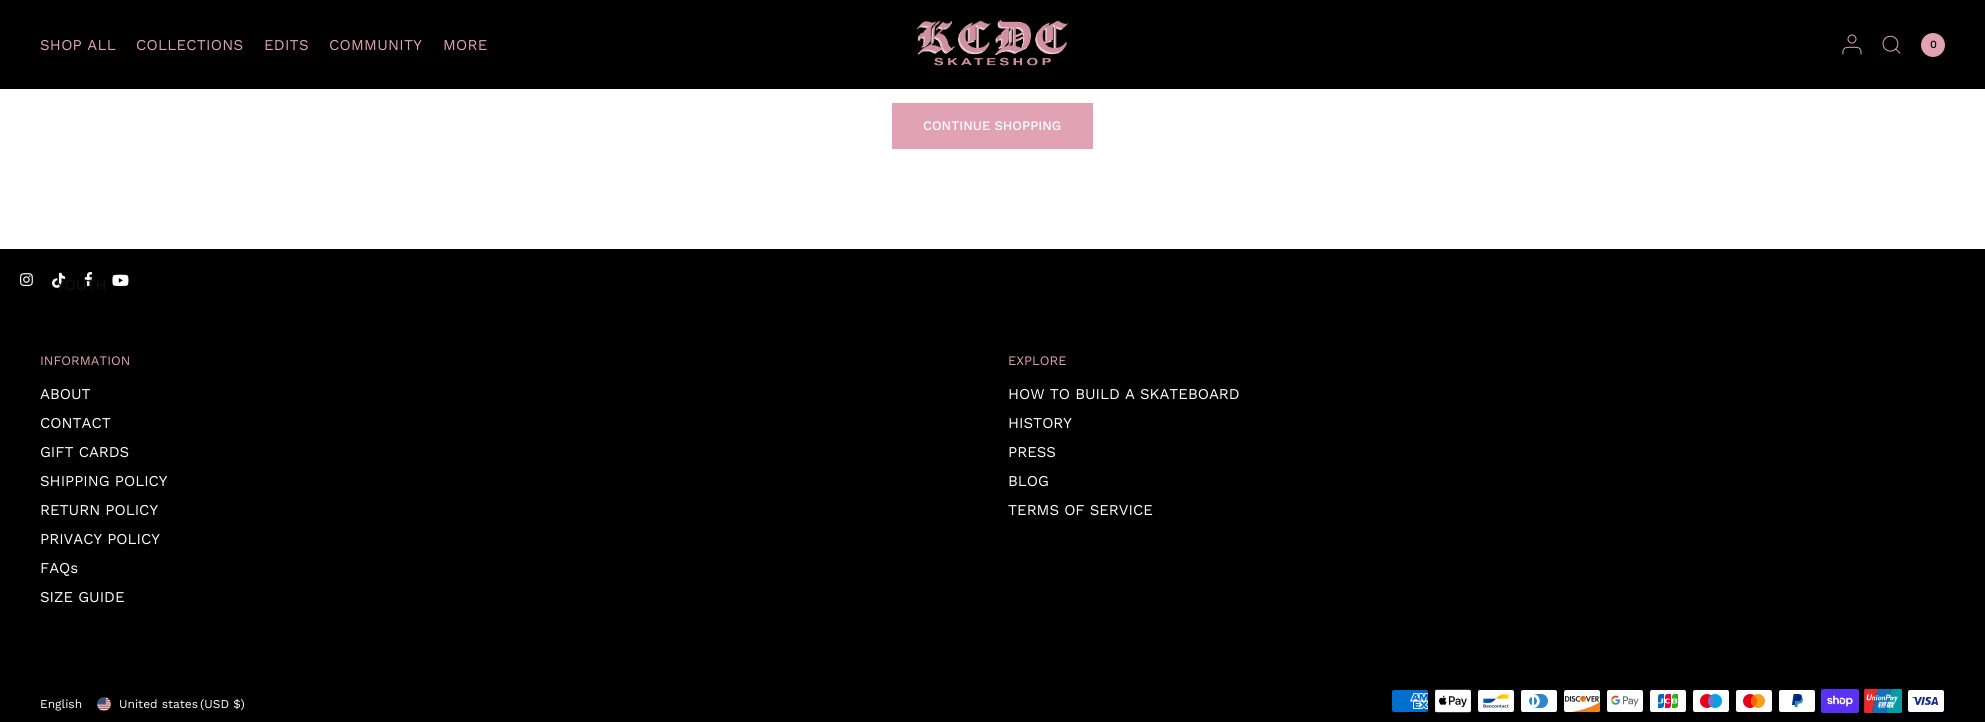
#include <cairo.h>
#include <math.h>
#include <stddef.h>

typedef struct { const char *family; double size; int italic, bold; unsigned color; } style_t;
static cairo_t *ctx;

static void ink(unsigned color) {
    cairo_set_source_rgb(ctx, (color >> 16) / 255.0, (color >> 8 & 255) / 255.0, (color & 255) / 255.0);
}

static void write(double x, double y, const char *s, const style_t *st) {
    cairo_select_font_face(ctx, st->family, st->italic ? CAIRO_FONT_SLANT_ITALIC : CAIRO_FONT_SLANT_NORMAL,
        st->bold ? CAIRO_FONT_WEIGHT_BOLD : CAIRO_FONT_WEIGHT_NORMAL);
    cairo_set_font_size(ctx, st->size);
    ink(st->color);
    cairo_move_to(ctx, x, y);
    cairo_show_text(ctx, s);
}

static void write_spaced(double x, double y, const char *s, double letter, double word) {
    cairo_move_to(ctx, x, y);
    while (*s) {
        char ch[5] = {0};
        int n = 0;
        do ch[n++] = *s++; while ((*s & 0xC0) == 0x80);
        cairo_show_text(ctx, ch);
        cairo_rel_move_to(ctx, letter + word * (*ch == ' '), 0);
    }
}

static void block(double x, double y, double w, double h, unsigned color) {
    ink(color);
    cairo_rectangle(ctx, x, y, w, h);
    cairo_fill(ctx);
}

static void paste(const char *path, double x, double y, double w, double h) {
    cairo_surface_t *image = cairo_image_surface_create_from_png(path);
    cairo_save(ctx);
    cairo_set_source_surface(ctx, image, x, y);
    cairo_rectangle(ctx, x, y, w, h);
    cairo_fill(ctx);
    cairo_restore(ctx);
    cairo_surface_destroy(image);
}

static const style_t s1 = {"Work Sans", 15, 0, 0, 0x131313};
static const style_t s2 = {"Work Sans Medium", 11, 0, 0, 0x000000};
static const style_t s3 = {"Work Sans Medium", 13, 0, 0, 0xffffff};
static const style_t s4 = {"Work Sans", 13, 0, 0, 0xe1a3b4};
static const style_t s5 = {"Work Sans", 15, 0, 0, 0xffffff};
static const style_t s6 = {"Work Sans", 12, 0, 0, 0xffffff};

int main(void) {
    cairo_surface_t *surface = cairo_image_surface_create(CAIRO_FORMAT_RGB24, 1985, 722);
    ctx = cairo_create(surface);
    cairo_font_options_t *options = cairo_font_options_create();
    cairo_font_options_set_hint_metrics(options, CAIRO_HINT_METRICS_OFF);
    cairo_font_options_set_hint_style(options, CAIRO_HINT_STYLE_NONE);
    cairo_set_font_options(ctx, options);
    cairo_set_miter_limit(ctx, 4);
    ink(0xffffff);
    cairo_paint(ctx);
    block(0, 0, 1985, 89, 0x000000);
    cairo_select_font_face(ctx, "Work Sans", CAIRO_FONT_SLANT_NORMAL, CAIRO_FONT_WEIGHT_NORMAL);
    cairo_set_font_size(ctx, 15);
    ink(0xe1a3b4);
    write_spaced(40, 50, "SHOP ALL", 0.25, 0);
    block(0, 249, 1985, 473, 0x000000);
    paste("pic5.png", 52, 272, 14, 16);
    paste("pic6.png", 84, 272, 9, 14);
    write(56, 290, "YOUTH", &s1);
    ink(0xe1a3b4);
    write_spaced(136, 50, "COLLECTIONS", 0.25, 0);
    write_spaced(264, 50, "EDITS", 0.25, 0);
    write_spaced(329, 50, "COMMUNITY", 0.25, 0);
    write_spaced(443, 50, "MORE", 0.25, 0);
    paste("pic1.png", 917, 20, 151, 46);
    paste("pic2.png", 1842, 34, 20, 21);
    paste("pic3.png", 1882, 35, 19, 19);
    cairo_arc(ctx, 1933, 45, 12, 0, 2 * M_PI);
    cairo_fill(ctx);
    write(1930, 48, "0", &s2);
    block(892, 103, 201, 46, 0xe1a3b4);
    write(923, 130, "CONTINUE SHOPPING", &s3);
    paste("pic4.png", 20, 273, 13, 13);
    paste("pic7.png", 112, 274, 17, 12);
    write(40, 365, "INFORMATION", &s4);
    write(40, 399, "ABOUT", &s5);
    write(40, 428, "CONTACT", &s5);
    write(40, 457, "GIFT CARDS", &s5);
    write(40, 486, "SHIPPING POLICY", &s5);
    write(40, 515, "RETURN POLICY", &s5);
    write(40, 544, "PRIVACY POLICY", &s5);
    write(40, 573, "FAQs", &s5);
    write(40, 602, "SIZE GUIDE", &s5);
    write(1008, 365, "EXPLORE", &s4);
    write(1008, 399, "HOW TO BUILD A SKATEBOARD", &s5);
    write(1008, 428, "HISTORY", &s5);
    write(1008, 457, "PRESS", &s5);
    write(1008, 486, "BLOG", &s5);
    write(1008, 515, "TERMS OF SERVICE", &s5);
    write(40, 708, "English", &s6);
    paste("pic8.png", 97, 697, 14, 14);
    write(119, 708, "United states", &s6);
    write(200, 708, "(USD $)", &s6);
    paste("pic9.png", 1392, 690, 36, 22);
    paste("pic10.png", 1435, 689, 36, 24);
    paste("pic11.png", 1478, 690, 36, 22);
    paste("pic12.png", 1521, 690, 36, 22);
    paste("pic13.png", 1564, 690, 37, 22);
    paste("pic14.png", 1607, 690, 36, 22);
    paste("pic15.png", 1650, 690, 36, 22);
    paste("pic16.png", 1693, 690, 36, 22);
    paste("pic17.png", 1736, 690, 36, 22);
    paste("pic18.png", 1779, 690, 36, 22);
    paste("pic19.png", 1821, 689, 38, 24);
    paste("pic20.png", 1864, 689, 38, 24);
    paste("pic21.png", 1908, 690, 36, 22);
    cairo_surface_write_to_png(surface, "screenshot.png");
    cairo_font_options_destroy(options);
    cairo_destroy(ctx);
    cairo_surface_destroy(surface);
    return 0;
}
